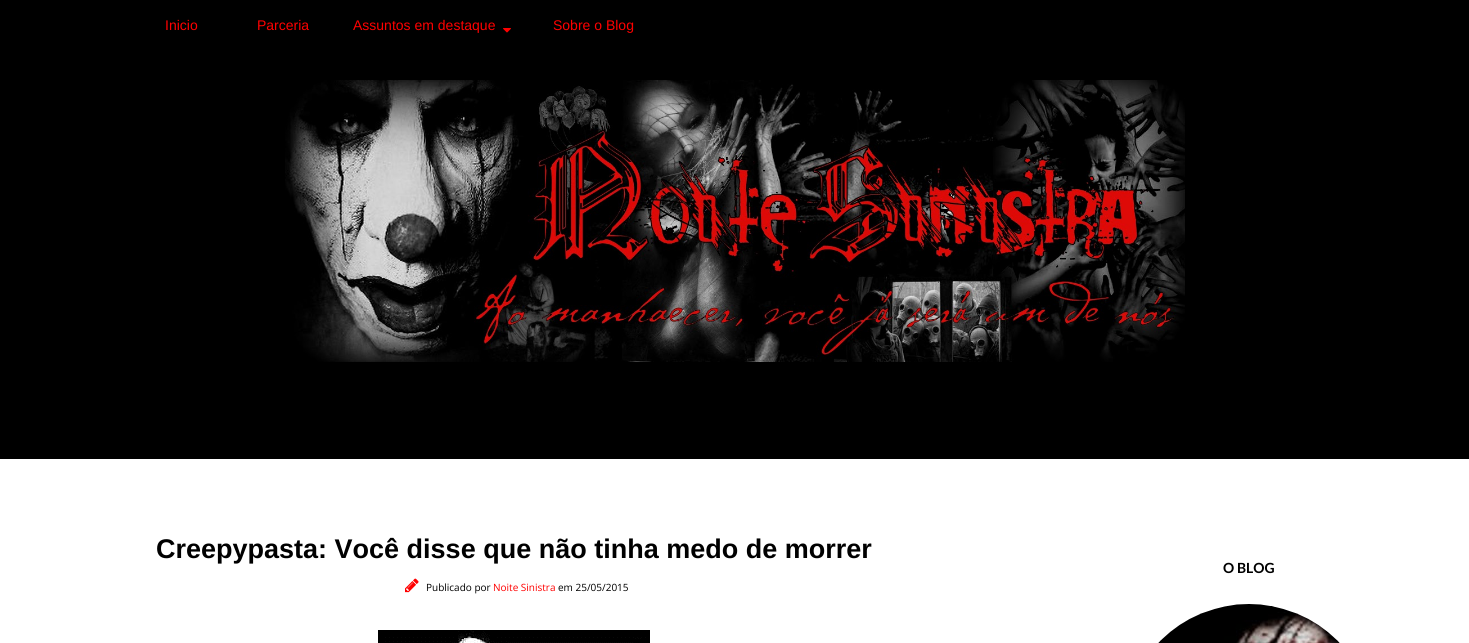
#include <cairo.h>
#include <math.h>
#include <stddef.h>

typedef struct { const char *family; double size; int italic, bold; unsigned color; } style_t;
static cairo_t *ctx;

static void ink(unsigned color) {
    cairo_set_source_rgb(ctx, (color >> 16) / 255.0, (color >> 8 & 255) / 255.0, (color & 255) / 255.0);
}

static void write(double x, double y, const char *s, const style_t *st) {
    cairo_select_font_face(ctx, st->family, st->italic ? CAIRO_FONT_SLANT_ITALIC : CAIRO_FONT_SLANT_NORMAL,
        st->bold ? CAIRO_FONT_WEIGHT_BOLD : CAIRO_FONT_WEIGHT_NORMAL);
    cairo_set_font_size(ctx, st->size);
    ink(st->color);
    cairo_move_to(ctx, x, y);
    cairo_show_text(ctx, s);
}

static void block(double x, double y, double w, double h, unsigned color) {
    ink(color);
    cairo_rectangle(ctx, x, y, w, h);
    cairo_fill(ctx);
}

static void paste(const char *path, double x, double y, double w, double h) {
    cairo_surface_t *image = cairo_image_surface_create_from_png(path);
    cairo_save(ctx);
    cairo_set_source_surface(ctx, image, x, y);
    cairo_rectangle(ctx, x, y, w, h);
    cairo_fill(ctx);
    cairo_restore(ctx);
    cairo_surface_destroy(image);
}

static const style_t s1 = {"Liberation Sans", 14, 0, 0, 0xff0000};
static const style_t s2 = {"Liberation Sans", 27, 0, 1, 0x000000};
static const style_t s3 = {"Open Sans", 10, 0, 0, 0x000000};
static const style_t s4 = {"Open Sans", 10, 0, 0, 0xff0000};
static const style_t s5 = {"Lato", 14, 0, 1, 0x000000};

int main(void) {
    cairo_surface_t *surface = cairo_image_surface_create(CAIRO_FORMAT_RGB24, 1469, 643);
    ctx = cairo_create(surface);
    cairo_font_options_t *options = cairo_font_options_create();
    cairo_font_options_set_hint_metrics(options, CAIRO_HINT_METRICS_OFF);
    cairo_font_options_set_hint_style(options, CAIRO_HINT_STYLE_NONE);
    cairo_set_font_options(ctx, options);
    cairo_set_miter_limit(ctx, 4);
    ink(0x000000);
    cairo_paint(ctx);
    write(165, 30, "Inicio", &s1);
    write(257, 30, "Parceria", &s1);
    write(353, 30, "Assuntos em destaque", &s1);
    paste("pic1.png", 503, 28, 8, 5);
    write(553, 30, "Sobre o Blog", &s1);
    paste("pic2.png", 285, 80, 900, 282);
    block(0, 459, 1469, 184, 0xffffff);
    write(156, 558, "Creepypasta: Você disse que não tinha medo de morrer", &s2);
    paste("pic3.png", 405, 578, 14, 15);
    write(426, 591, "Publicado por", &s3);
    write(493, 591, "Noite Sinistra", &s4);
    write(558, 591, "em 25/05/2015", &s3);
    paste("pic4.png", 378, 630, 272, 13);
    write(1223, 573, "O BLOG", &s5);
    paste("pic5.png", 1158, 604, 182, 39);
    cairo_surface_write_to_png(surface, "screenshot.png");
    cairo_font_options_destroy(options);
    cairo_destroy(ctx);
    cairo_surface_destroy(surface);
    return 0;
}
